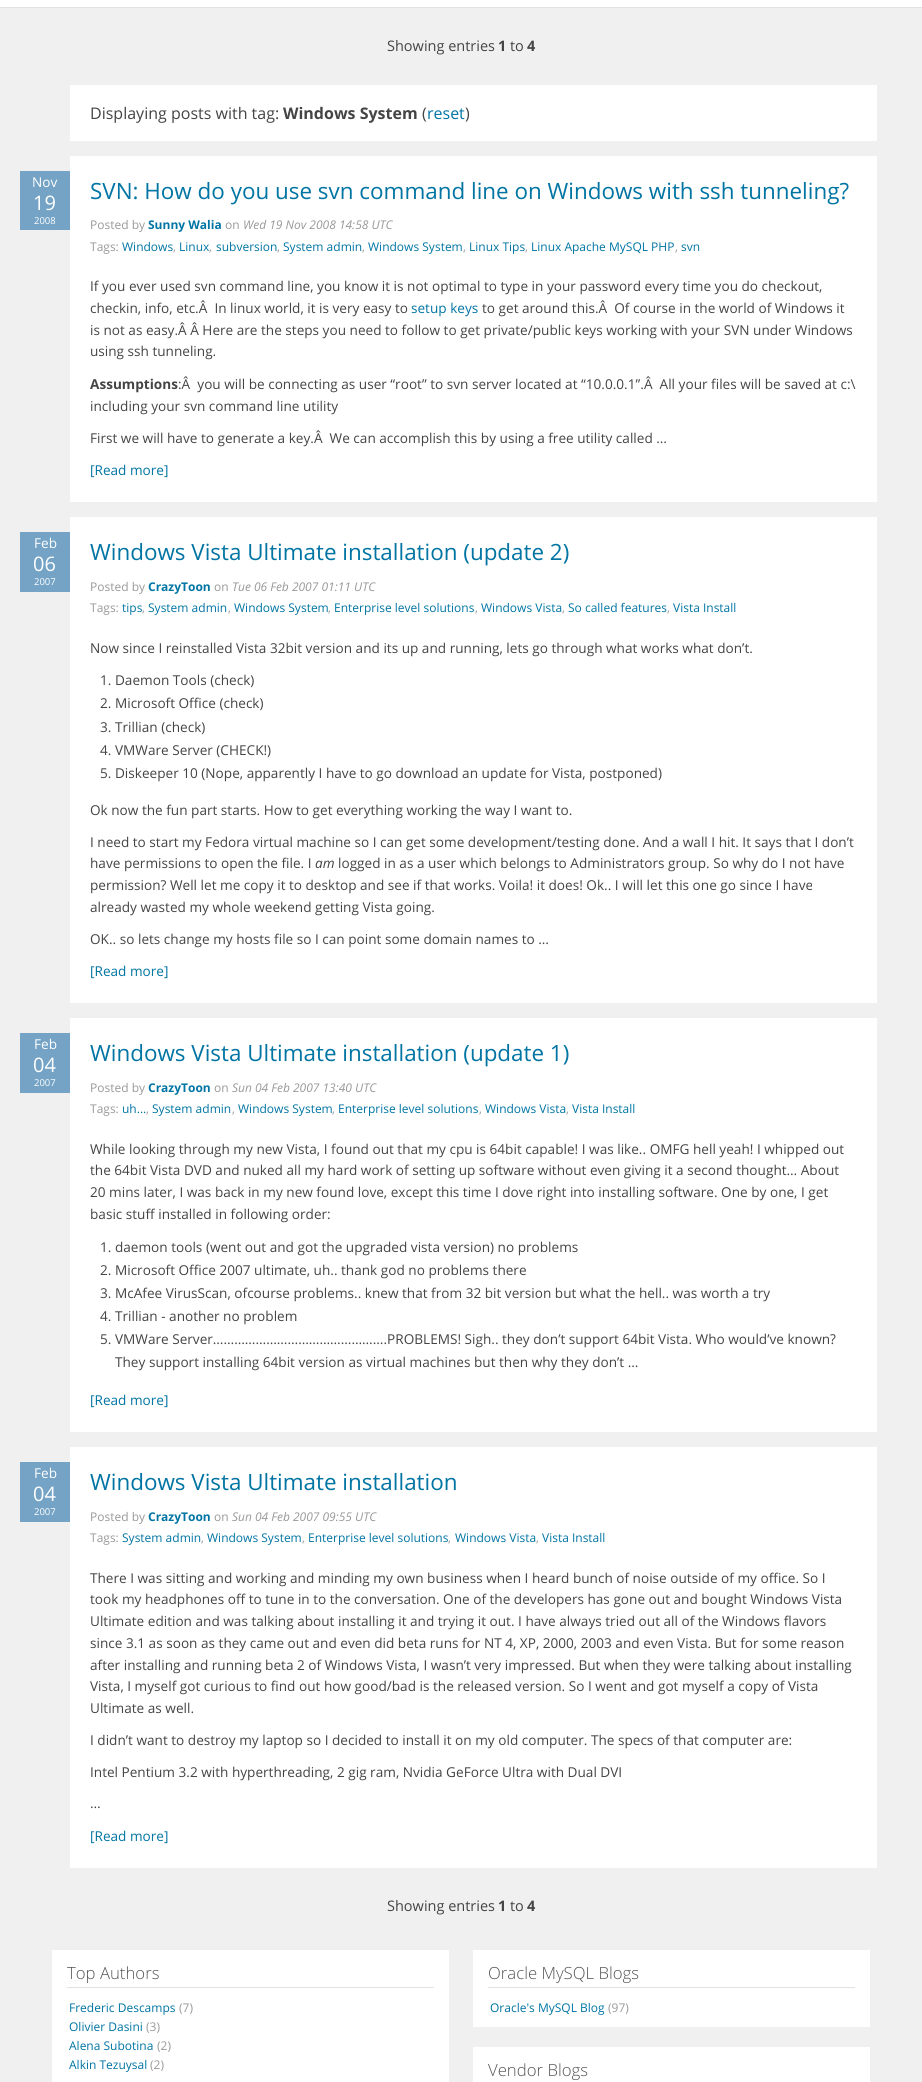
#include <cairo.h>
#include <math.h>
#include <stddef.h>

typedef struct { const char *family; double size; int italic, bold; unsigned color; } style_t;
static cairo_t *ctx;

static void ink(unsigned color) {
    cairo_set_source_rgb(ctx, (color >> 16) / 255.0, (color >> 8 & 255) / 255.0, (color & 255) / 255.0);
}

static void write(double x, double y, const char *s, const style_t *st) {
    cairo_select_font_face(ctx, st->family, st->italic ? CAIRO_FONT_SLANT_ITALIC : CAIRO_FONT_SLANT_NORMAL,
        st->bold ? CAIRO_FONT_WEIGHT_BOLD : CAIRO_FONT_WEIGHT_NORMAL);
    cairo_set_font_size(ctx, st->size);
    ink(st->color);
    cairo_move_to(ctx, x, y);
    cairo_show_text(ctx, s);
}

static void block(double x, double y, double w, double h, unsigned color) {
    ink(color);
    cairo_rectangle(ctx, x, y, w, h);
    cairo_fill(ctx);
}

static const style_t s1 = {"Open Sans", 14.5, 0, 0, 0x444444};
static const style_t s2 = {"Open Sans", 14.5, 0, 1, 0x444444};
static const style_t s3 = {"Open Sans", 16, 0, 0, 0x444444};
static const style_t s4 = {"Open Sans", 16, 0, 1, 0x444444};
static const style_t s5 = {"Open Sans", 16, 0, 0, 0x0074a3};
static const style_t s6 = {"Open Sans", 13.6, 0, 0, 0xffffff};
static const style_t s7 = {"Open Sans", 20, 0, 0, 0xffffff};
static const style_t s8 = {"Open Sans", 9.5, 0, 0, 0xffffff};
static const style_t s9 = {"Open Sans", 22.4, 0, 0, 0x0074a3};
static const style_t s10 = {"Open Sans", 12, 0, 0, 0x999999};
static const style_t s11 = {"Open Sans", 12, 0, 1, 0x0074a3};
static const style_t s12 = {"Open Sans", 12, 1, 0, 0x999999};
static const style_t s13 = {"Open Sans", 12, 0, 0, 0x0074a3};
static const style_t s14 = {"Open Sans", 13.6, 0, 0, 0x444444};
static const style_t s15 = {"Open Sans", 13.6, 0, 0, 0x0074a3};
static const style_t s16 = {"Open Sans", 13.6, 0, 1, 0x444444};
static const style_t s17 = {"Open Sans", 13.6, 1, 0, 0x444444};
static const style_t s18 = {"Open Sans Light", 16.75, 0, 0, 0x555555};

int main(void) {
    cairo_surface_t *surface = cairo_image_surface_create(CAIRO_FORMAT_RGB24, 922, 2082);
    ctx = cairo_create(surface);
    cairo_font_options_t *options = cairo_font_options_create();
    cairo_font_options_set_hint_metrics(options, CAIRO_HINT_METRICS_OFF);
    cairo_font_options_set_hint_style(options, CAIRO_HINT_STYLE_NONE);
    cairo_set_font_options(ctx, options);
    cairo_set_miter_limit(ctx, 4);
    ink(0xf0f0f0);
    cairo_paint(ctx);
    block(0, 0, 922, 7, 0xffffff);
    block(0, 7, 922, 1, 0xe2e2e2);
    write(387, 51, "Showing entries", &s1);
    write(498, 51, "1", &s2);
    write(510, 51, "to", &s1);
    write(527, 51, "4", &s2);
    block(70, 85, 807, 56, 0xffffff);
    write(90, 119, "Displaying posts with tag:", &s3);
    write(283, 119, "Windows System", &s4);
    write(422, 119, "(", &s3);
    write(427, 119, "reset", &s5);
    write(465, 119, ")", &s3);
    block(70, 156, 807, 346, 0xffffff);
    block(20, 171, 50, 59, 0x74a3c6);
    write(32, 187, "Nov", &s6);
    write(33, 210, "19", &s7);
    write(34, 224, "2008", &s8);
    write(90, 199, "SVN: How do you use svn command line on Windows with ssh tunneling?", &s9);
    write(90, 229, "Posted by", &s10);
    write(148, 229, "Sunny Walia", &s11);
    write(225, 229, "on", &s10);
    write(243, 229, "Wed 19 Nov 2008 14:58 UTC", &s12);
    write(90, 251, "Tags:", &s10);
    write(122, 251, "Windows", &s13);
    write(173, 251, ",", &s10);
    write(179, 251, "Linux", &s13);
    write(209, 251, ",", &s10);
    write(216, 251, "subversion", &s13);
    write(277, 251, ",", &s10);
    write(283, 251, "System admin", &s13);
    write(362, 251, ",", &s10);
    write(368, 251, "Windows System", &s13);
    write(463, 251, ",", &s10);
    write(469, 251, "Linux Tips", &s13);
    write(525, 251, ",", &s10);
    write(531, 251, "Linux Apache MySQL PHP", &s13);
    write(675, 251, ",", &s10);
    write(681, 251, "svn", &s13);
    write(90, 291, "If you ever used svn command line, you know it is not optimal to type in your password every time you do checkout,", &s14);
    write(90, 313, "checkin, info, etc.Â  In linux world, it is very easy to", &s14);
    write(411, 313, "setup keys", &s15);
    write(482, 313, "to get around this.Â  Of course in the world of Windows it", &s14);
    write(90, 335, "is not as easy.Â Â Here are the steps you need to follow to get private/public keys working with your SVN under Windows", &s14);
    write(90, 356, "using ssh tunneling.", &s14);
    write(90, 389, "Assumptions", &s16);
    write(178, 389, ":Â  you will be connecting as user “root” to svn server located at “10.0.0.1”.Â  All your files will be saved at c:\\", &s14);
    write(90, 411, "including your svn command line utility", &s14);
    write(90, 443, "First we will have to generate a key.Â  We can accomplish this by using a free utility called …", &s14);
    write(90, 475, "[Read more]", &s15);
    block(70, 517, 807, 486, 0xffffff);
    block(20, 532, 50, 60, 0x74a3c6);
    write(34, 548, "Feb", &s6);
    write(33, 571, "06", &s7);
    write(34, 585, "2007", &s8);
    write(90, 560, "Windows Vista Ultimate installation (update 2)", &s9);
    write(90, 591, "Posted by", &s10);
    write(148, 591, "CrazyToon", &s11);
    write(214, 591, "on", &s10);
    write(232, 591, "Tue 06 Feb 2007 01:11 UTC", &s12);
    write(90, 612, "Tags:", &s10);
    write(122, 612, "tips", &s13);
    write(142, 612, ",", &s10);
    write(148, 612, "System admin", &s13);
    write(228, 612, ",", &s10);
    write(234, 612, "Windows System", &s13);
    write(328, 612, ",", &s10);
    write(334, 612, "Enterprise level solutions", &s13);
    write(475, 612, ",", &s10);
    write(481, 612, "Windows Vista", &s13);
    write(562, 612, ",", &s10);
    write(568, 612, "So called features", &s13);
    write(667, 612, ",", &s10);
    write(673, 612, "Vista Install", &s13);
    write(90, 653, "Now since I reinstalled Vista 32bit version and its up and running, lets go through what works what don’t.", &s14);
    write(100, 685, "1. Daemon Tools (check)", &s14);
    write(100, 708, "2. Microsoft Office (check)", &s14);
    write(100, 732, "3. Trillian (check)", &s14);
    write(100, 755, "4. VMWare Server (CHECK!)", &s14);
    write(100, 778, "5. Diskeeper 10 (Nope, apparently I have to go download an update for Vista, postponed)", &s14);
    write(90, 815, "Ok now the fun part starts. How to get everything working the way I want to.", &s14);
    write(90, 847, "I need to start my Fedora virtual machine so I can get some development/testing done. And a wall I hit. It says that I don’t", &s14);
    write(90, 868, "have permissions to open the file. I", &s14);
    write(315, 868, "am", &s17);
    write(338, 868, "logged in as a user which belongs to Administrators group. So why do I not have", &s14);
    write(90, 890, "permission? Well let me copy it to desktop and see if that works. Voila! it does! Ok.. I will let this one go since I have", &s14);
    write(90, 912, "already wasted my whole weekend getting Vista going.", &s14);
    write(90, 944, "OK.. so lets change my hosts file so I can point some domain names to …", &s14);
    write(90, 976, "[Read more]", &s15);
    block(70, 1018, 807, 414, 0xffffff);
    block(20, 1033, 50, 60, 0x74a3c6);
    write(34, 1049, "Feb", &s6);
    write(33, 1072, "04", &s7);
    write(34, 1086, "2007", &s8);
    write(90, 1061, "Windows Vista Ultimate installation (update 1)", &s9);
    write(90, 1092, "Posted by", &s10);
    write(148, 1092, "CrazyToon", &s11);
    write(214, 1092, "on", &s10);
    write(232, 1092, "Sun 04 Feb 2007 13:40 UTC", &s12);
    write(90, 1113, "Tags:", &s10);
    write(122, 1113, "uh...", &s13);
    write(146, 1113, ",", &s10);
    write(152, 1113, "System admin", &s13);
    write(232, 1113, ",", &s10);
    write(238, 1113, "Windows System", &s13);
    write(332, 1113, ",", &s10);
    write(338, 1113, "Enterprise level solutions", &s13);
    write(479, 1113, ",", &s10);
    write(485, 1113, "Windows Vista", &s13);
    write(566, 1113, ",", &s10);
    write(572, 1113, "Vista Install", &s13);
    write(90, 1154, "While looking through my new Vista, I found out that my cpu is 64bit capable! I was like.. OMFG hell yeah! I whipped out", &s14);
    write(90, 1175, "the 64bit Vista DVD and nuked all my hard work of setting up software without even giving it a second thought… About", &s14);
    write(90, 1197, "20 mins later, I was back in my new found love, except this time I dove right into installing software. One by one, I get", &s14);
    write(90, 1219, "basic stuff installed in following order:", &s14);
    write(100, 1252, "1. daemon tools (went out and got the upgraded vista version) no problems", &s14);
    write(100, 1275, "2. Microsoft Office 2007 ultimate, uh.. thank god no problems there", &s14);
    write(100, 1298, "3. McAfee VirusScan, ofcourse problems.. knew that from 32 bit version but what the hell.. was worth a try", &s14);
    write(100, 1321, "4. Trillian - another no problem", &s14);
    write(100, 1344, "5. VMWare Server………………………………………….PROBLEMS! Sigh.. they don’t support 64bit Vista. Who would’ve known?", &s14);
    write(115, 1367, "They support installing 64bit version as virtual machines but then why they don’t …", &s14);
    write(90, 1405, "[Read more]", &s15);
    block(70, 1447, 807, 421, 0xffffff);
    block(20, 1462, 50, 60, 0x74a3c6);
    write(34, 1478, "Feb", &s6);
    write(33, 1501, "04", &s7);
    write(34, 1515, "2007", &s8);
    write(90, 1490, "Windows Vista Ultimate installation", &s9);
    write(90, 1521, "Posted by", &s10);
    write(148, 1521, "CrazyToon", &s11);
    write(214, 1521, "on", &s10);
    write(232, 1521, "Sun 04 Feb 2007 09:55 UTC", &s12);
    write(90, 1542, "Tags:", &s10);
    write(122, 1542, "System admin", &s13);
    write(201, 1542, ",", &s10);
    write(207, 1542, "Windows System", &s13);
    write(302, 1542, ",", &s10);
    write(308, 1542, "Enterprise level solutions", &s13);
    write(448, 1542, ",", &s10);
    write(455, 1542, "Windows Vista", &s13);
    write(536, 1542, ",", &s10);
    write(542, 1542, "Vista Install", &s13);
    write(90, 1583, "There I was sitting and working and minding my own business when I heard bunch of noise outside of my office. So I", &s14);
    write(90, 1604, "took my headphones off to tune in to the conversation. One of the developers has gone out and bought Windows Vista", &s14);
    write(90, 1626, "Ultimate edition and was talking about installing it and trying it out. I have always tried out all of the Windows flavors", &s14);
    write(90, 1648, "since 3.1 as soon as they came out and even did beta runs for NT 4, XP, 2000, 2003 and even Vista. But for some reason", &s14);
    write(90, 1670, "after installing and running beta 2 of Windows Vista, I wasn’t very impressed. But when they were talking about installing", &s14);
    write(90, 1691, "Vista, I myself got curious to find out how good/bad is the released version. So I went and got myself a copy of Vista", &s14);
    write(90, 1713, "Ultimate as well.", &s14);
    write(90, 1745, "I didn’t want to destroy my laptop so I decided to install it on my old computer. The specs of that computer are:", &s14);
    write(90, 1777, "Intel Pentium 3.2 with hyperthreading, 2 gig ram, Nvidia GeForce Ultra with Dual DVI", &s14);
    write(90, 1808, "…", &s14);
    write(90, 1841, "[Read more]", &s15);
    write(387, 1911, "Showing entries", &s1);
    write(498, 1911, "1", &s2);
    write(510, 1911, "to", &s1);
    write(527, 1911, "4", &s2);
    block(52, 1950, 397, 132, 0xffffff);
    block(67, 1987, 367, 1, 0xe2e2e2);
    write(67, 1979, "Top Authors", &s18);
    write(69, 2012, "Frederic Descamps", &s13);
    write(179, 2012, "(7)", &s10);
    write(69, 2031, "Olivier Dasini", &s13);
    write(146, 2031, "(3)", &s10);
    write(69, 2050, "Alena Subotina", &s13);
    write(157, 2050, "(2)", &s10);
    write(69, 2069, "Alkin Tezuysal", &s13);
    write(150, 2069, "(2)", &s10);
    block(473, 1950, 397, 77, 0xffffff);
    block(488, 1987, 367, 1, 0xe2e2e2);
    write(488, 1979, "Oracle MySQL Blogs", &s18);
    write(490, 2012, "Oracle's MySQL Blog", &s13);
    write(608, 2012, "(97)", &s10);
    block(473, 2047, 397, 35, 0xffffff);
    write(488, 2076, "Vendor Blogs", &s18);
    cairo_surface_write_to_png(surface, "screenshot.png");
    cairo_font_options_destroy(options);
    cairo_destroy(ctx);
    cairo_surface_destroy(surface);
    return 0;
}
